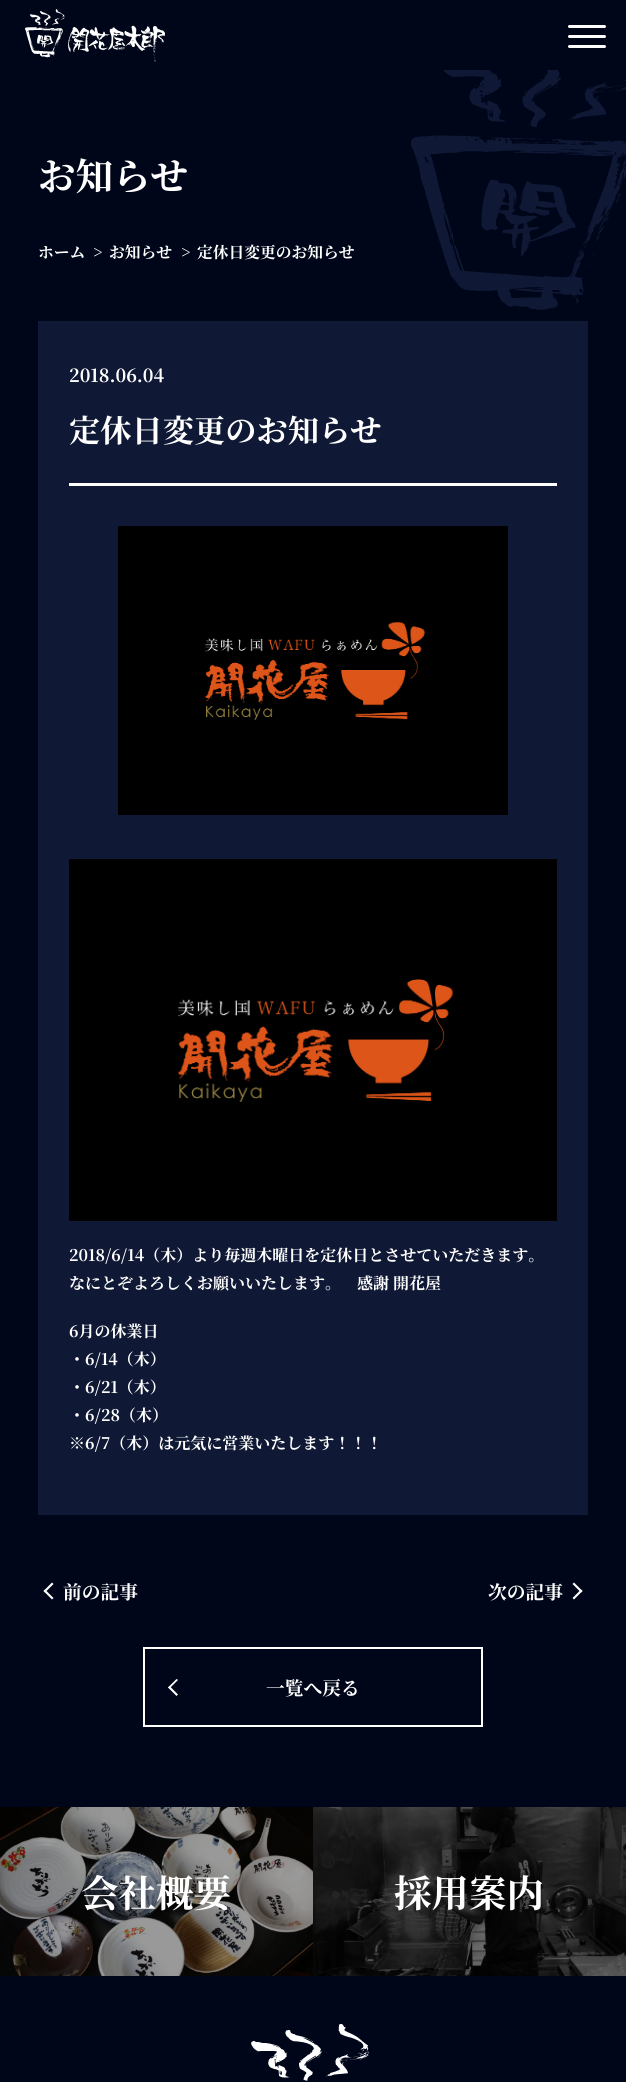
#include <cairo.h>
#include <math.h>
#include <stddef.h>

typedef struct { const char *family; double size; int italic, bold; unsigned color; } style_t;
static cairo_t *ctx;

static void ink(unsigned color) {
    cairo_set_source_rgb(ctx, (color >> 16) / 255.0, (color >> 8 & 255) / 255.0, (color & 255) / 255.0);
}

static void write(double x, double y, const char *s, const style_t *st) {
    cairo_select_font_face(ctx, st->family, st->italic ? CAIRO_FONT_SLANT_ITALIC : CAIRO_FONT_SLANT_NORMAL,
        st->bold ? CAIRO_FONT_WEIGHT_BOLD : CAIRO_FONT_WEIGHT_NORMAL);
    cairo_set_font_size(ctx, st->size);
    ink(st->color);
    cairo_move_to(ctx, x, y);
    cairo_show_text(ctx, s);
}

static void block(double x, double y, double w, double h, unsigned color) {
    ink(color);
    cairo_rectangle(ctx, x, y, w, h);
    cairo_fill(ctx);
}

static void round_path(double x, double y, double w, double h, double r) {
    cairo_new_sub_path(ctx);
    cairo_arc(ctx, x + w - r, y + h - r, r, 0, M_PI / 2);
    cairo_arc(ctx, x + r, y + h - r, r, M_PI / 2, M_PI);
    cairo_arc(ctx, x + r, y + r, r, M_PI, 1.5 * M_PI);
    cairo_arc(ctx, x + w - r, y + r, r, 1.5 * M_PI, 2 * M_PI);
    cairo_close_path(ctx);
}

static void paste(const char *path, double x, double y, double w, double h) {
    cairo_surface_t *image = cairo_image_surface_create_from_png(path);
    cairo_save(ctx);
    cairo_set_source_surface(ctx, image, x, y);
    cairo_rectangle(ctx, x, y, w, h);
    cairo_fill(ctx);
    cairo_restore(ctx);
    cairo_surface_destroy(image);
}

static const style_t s1 = {"Noto Serif JP ExtraLight", 37.5, 0, 0, 0xffffff};
static const style_t s2 = {"Noto Serif JP ExtraLight", 15.75, 0, 0, 0xffffff};
static const style_t s3 = {"Noto Serif JP ExtraLight", 18, 0, 0, 0xffffff};
static const style_t s4 = {"Noto Serif JP ExtraLight", 31.25, 0, 0, 0xffffff};
static const style_t s5 = {"Noto Serif JP ExtraLight", 16, 0, 0, 0xffffff};
static const style_t s6 = {"Noto Serif JP ExtraLight", 18.75, 0, 0, 0xffffff};

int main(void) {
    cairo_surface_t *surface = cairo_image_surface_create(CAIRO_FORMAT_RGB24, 626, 2082);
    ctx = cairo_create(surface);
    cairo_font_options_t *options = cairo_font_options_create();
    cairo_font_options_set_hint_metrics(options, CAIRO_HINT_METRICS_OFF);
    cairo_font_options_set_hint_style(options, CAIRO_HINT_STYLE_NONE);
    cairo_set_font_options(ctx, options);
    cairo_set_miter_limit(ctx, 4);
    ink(0x000619);
    cairo_paint(ctx);
    paste("pic1.png", 25, 9, 140, 53);
    ink(0xffffff);
    round_path(568, 25, 38, 3, 1.5);
    cairo_fill(ctx);
    round_path(568, 35, 38, 3, 1.5);
    cairo_fill(ctx);
    round_path(568, 45, 38, 3, 1.5);
    cairo_fill(ctx);
    write(38, 190, "お知らせ", &s1);
    write(38, 258, "ホーム", &s2);
    write(93, 258, ">", &s2);
    write(109, 258, "お知らせ", &s2);
    write(181, 258, ">", &s2);
    write(197, 258, "定休日変更のお知らせ", &s2);
    paste("pic2.png", 411, 70, 215, 240);
    block(38, 321, 550, 1194, 0x0f1834);
    write(69, 382, "2018.06.04", &s3);
    block(69, 483, 488, 3, 0xffffff);
    write(69, 442, "定休日変更のお知らせ", &s4);
    paste("pic3.png", 118, 526, 390, 289);
    paste("pic4.png", 69, 859, 488, 362);
    write(69, 1261, "2018/6/14（木）より毎週木曜日を定休日とさせていただきます。", &s5);
    write(69, 1289, "なにとぞよろしくお願いいたします。　感謝 開花屋", &s5);
    write(69, 1337, "6月の休業日", &s5);
    write(69, 1365, "・6/14（木）", &s5);
    write(69, 1393, "・6/21（木）", &s5);
    write(69, 1421, "・6/28（木）", &s5);
    write(69, 1449, "※6/7（木）は元気に営業いたします！！！", &s5);
    cairo_new_path(ctx);
    cairo_move_to(ctx, 53.5, 1598);
    cairo_line_to(ctx, 52, 1599.5);
    cairo_line_to(ctx, 43.5, 1591);
    cairo_line_to(ctx, 45, 1589.5);
    cairo_close_path(ctx);
    cairo_fill(ctx);
    cairo_new_path(ctx);
    cairo_move_to(ctx, 53.5, 1584);
    cairo_line_to(ctx, 45, 1592.5);
    cairo_line_to(ctx, 43.5, 1591);
    cairo_line_to(ctx, 52, 1582.5);
    cairo_close_path(ctx);
    cairo_fill(ctx);
    write(63, 1599, "前の記事", &s6);
    write(488, 1599, "次の記事", &s6);
    cairo_new_path(ctx);
    cairo_move_to(ctx, 572.5, 1584);
    cairo_line_to(ctx, 574, 1582.5);
    cairo_line_to(ctx, 582.5, 1591);
    cairo_line_to(ctx, 581, 1592.5);
    cairo_close_path(ctx);
    cairo_fill(ctx);
    cairo_new_path(ctx);
    cairo_move_to(ctx, 572.5, 1598);
    cairo_line_to(ctx, 581, 1589.5);
    cairo_line_to(ctx, 582.5, 1591);
    cairo_line_to(ctx, 574, 1599.5);
    cairo_close_path(ctx);
    cairo_fill(ctx);
    cairo_rectangle(ctx, 144, 1648, 338, 78);
    cairo_stroke(ctx);
    cairo_new_path(ctx);
    cairo_move_to(ctx, 178, 1694.5);
    cairo_line_to(ctx, 176.5, 1696);
    cairo_line_to(ctx, 168, 1687.5);
    cairo_line_to(ctx, 169.5, 1686);
    cairo_close_path(ctx);
    cairo_fill(ctx);
    cairo_new_path(ctx);
    cairo_move_to(ctx, 178, 1680);
    cairo_line_to(ctx, 169.5, 1688.5);
    cairo_line_to(ctx, 168, 1687.5);
    cairo_line_to(ctx, 176.5, 1679);
    cairo_close_path(ctx);
    cairo_fill(ctx);
    write(266, 1695, "一覧へ戻る", &s6);
    paste("pic5.png", 0, 1807, 313, 169);
    write(81, 1907, "会社概要", &s1);
    paste("pic6.png", 313, 1807, 313, 169);
    write(394, 1907, "採用案内", &s1);
    paste("pic7.png", 251, 2024, 118, 57);
    cairo_surface_write_to_png(surface, "screenshot.png");
    cairo_font_options_destroy(options);
    cairo_destroy(ctx);
    cairo_surface_destroy(surface);
    return 0;
}
